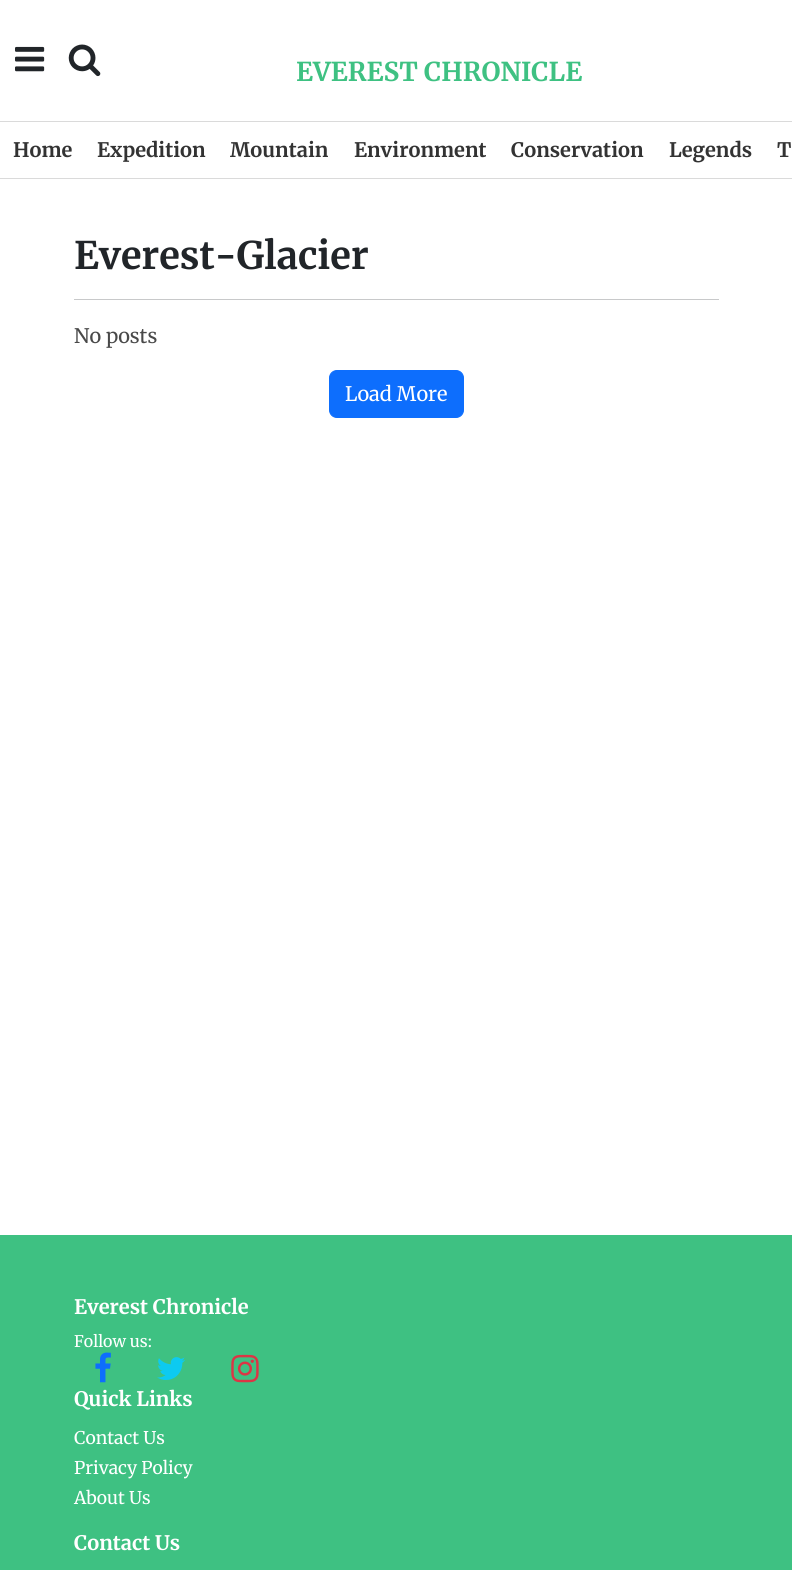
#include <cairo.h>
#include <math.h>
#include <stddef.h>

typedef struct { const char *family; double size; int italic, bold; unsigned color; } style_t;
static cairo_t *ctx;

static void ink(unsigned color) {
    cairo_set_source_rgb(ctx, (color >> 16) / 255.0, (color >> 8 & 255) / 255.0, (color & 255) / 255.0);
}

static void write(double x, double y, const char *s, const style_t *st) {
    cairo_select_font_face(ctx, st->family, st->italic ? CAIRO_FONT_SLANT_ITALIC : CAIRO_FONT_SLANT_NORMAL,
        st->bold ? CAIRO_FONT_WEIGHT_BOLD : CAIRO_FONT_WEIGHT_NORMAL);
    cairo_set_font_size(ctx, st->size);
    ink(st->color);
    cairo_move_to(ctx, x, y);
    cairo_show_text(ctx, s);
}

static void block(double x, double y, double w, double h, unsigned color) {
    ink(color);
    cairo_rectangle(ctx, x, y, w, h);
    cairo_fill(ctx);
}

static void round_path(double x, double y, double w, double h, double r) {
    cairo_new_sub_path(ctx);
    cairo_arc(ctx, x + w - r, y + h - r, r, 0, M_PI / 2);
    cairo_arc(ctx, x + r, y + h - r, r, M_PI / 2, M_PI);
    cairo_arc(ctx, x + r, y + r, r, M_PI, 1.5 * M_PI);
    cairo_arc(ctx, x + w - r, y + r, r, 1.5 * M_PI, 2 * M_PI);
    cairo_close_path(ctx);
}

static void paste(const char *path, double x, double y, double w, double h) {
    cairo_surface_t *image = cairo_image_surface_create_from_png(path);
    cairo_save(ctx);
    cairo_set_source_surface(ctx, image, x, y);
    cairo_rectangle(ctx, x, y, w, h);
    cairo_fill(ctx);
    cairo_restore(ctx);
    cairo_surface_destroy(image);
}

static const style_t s1 = {"Merriweather", 26, 0, 1, 0x3ec182};
static const style_t s2 = {"Merriweather", 20, 0, 1, 0x333333};
static const style_t s3 = {"Merriweather", 38, 0, 1, 0x212529};
static const style_t s4 = {"Merriweather", 20, 0, 0, 0x494949};
static const style_t s5 = {"Merriweather", 20, 0, 0, 0xffffff};
static const style_t s6 = {"Merriweather", 20, 0, 1, 0xffffff};
static const style_t s7 = {"Merriweather", 16, 0, 0, 0xffffff};
static const style_t s8 = {"Merriweather", 17.5, 0, 0, 0xffffff};

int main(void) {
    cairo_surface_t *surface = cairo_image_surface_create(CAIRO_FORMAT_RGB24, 792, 1570);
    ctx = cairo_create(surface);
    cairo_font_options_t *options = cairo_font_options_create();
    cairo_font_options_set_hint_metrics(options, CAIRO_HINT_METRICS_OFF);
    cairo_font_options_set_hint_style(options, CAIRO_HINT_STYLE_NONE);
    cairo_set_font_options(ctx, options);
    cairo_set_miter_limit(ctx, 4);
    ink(0xffffff);
    cairo_paint(ctx);
    paste("pic1.png", 15, 46, 30, 26);
    paste("pic2.png", 68, 44, 33, 33);
    write(296, 81, "EVEREST CHRONICLE", &s1);
    block(0, 121, 792, 1, 0xdadada);
    block(0, 178, 792, 1, 0xdadada);
    write(13, 157, "Home", &s2);
    write(97, 157, "Expedition", &s2);
    write(230, 157, "Mountain", &s2);
    write(354, 157, "Environment", &s2);
    write(511, 157, "Conservation", &s2);
    write(669, 157, "Legends", &s2);
    write(777, 157, "T", &s2);
    write(74, 269, "Everest-Glacier", &s3);
    block(74, 299, 645, 1, 0xc8c9ca);
    write(74, 343, "No posts", &s4);
    ink(0x0d6efd);
    round_path(329.5, 370.5, 134, 47, 7.5);
    cairo_fill_preserve(ctx);
    cairo_set_line_width(ctx, 1);
    cairo_stroke(ctx);
    write(345, 401, "Load More", &s5);
    block(0, 1235, 792, 335, 0x3ec182);
    write(74, 1314, "Everest Chronicle", &s6);
    write(74, 1347, "Follow us:", &s7);
    paste("pic3.png", 95, 1352, 16, 31);
    paste("pic4.png", 157, 1357, 28, 23);
    paste("pic5.png", 231, 1354, 28, 29);
    write(74, 1406, "Quick Links", &s6);
    write(74, 1444, "Contact Us", &s8);
    write(74, 1474, "Privacy Policy", &s8);
    write(74, 1504, "About Us", &s8);
    write(74, 1550, "Contact Us", &s6);
    cairo_surface_write_to_png(surface, "screenshot.png");
    cairo_font_options_destroy(options);
    cairo_destroy(ctx);
    cairo_surface_destroy(surface);
    return 0;
}
